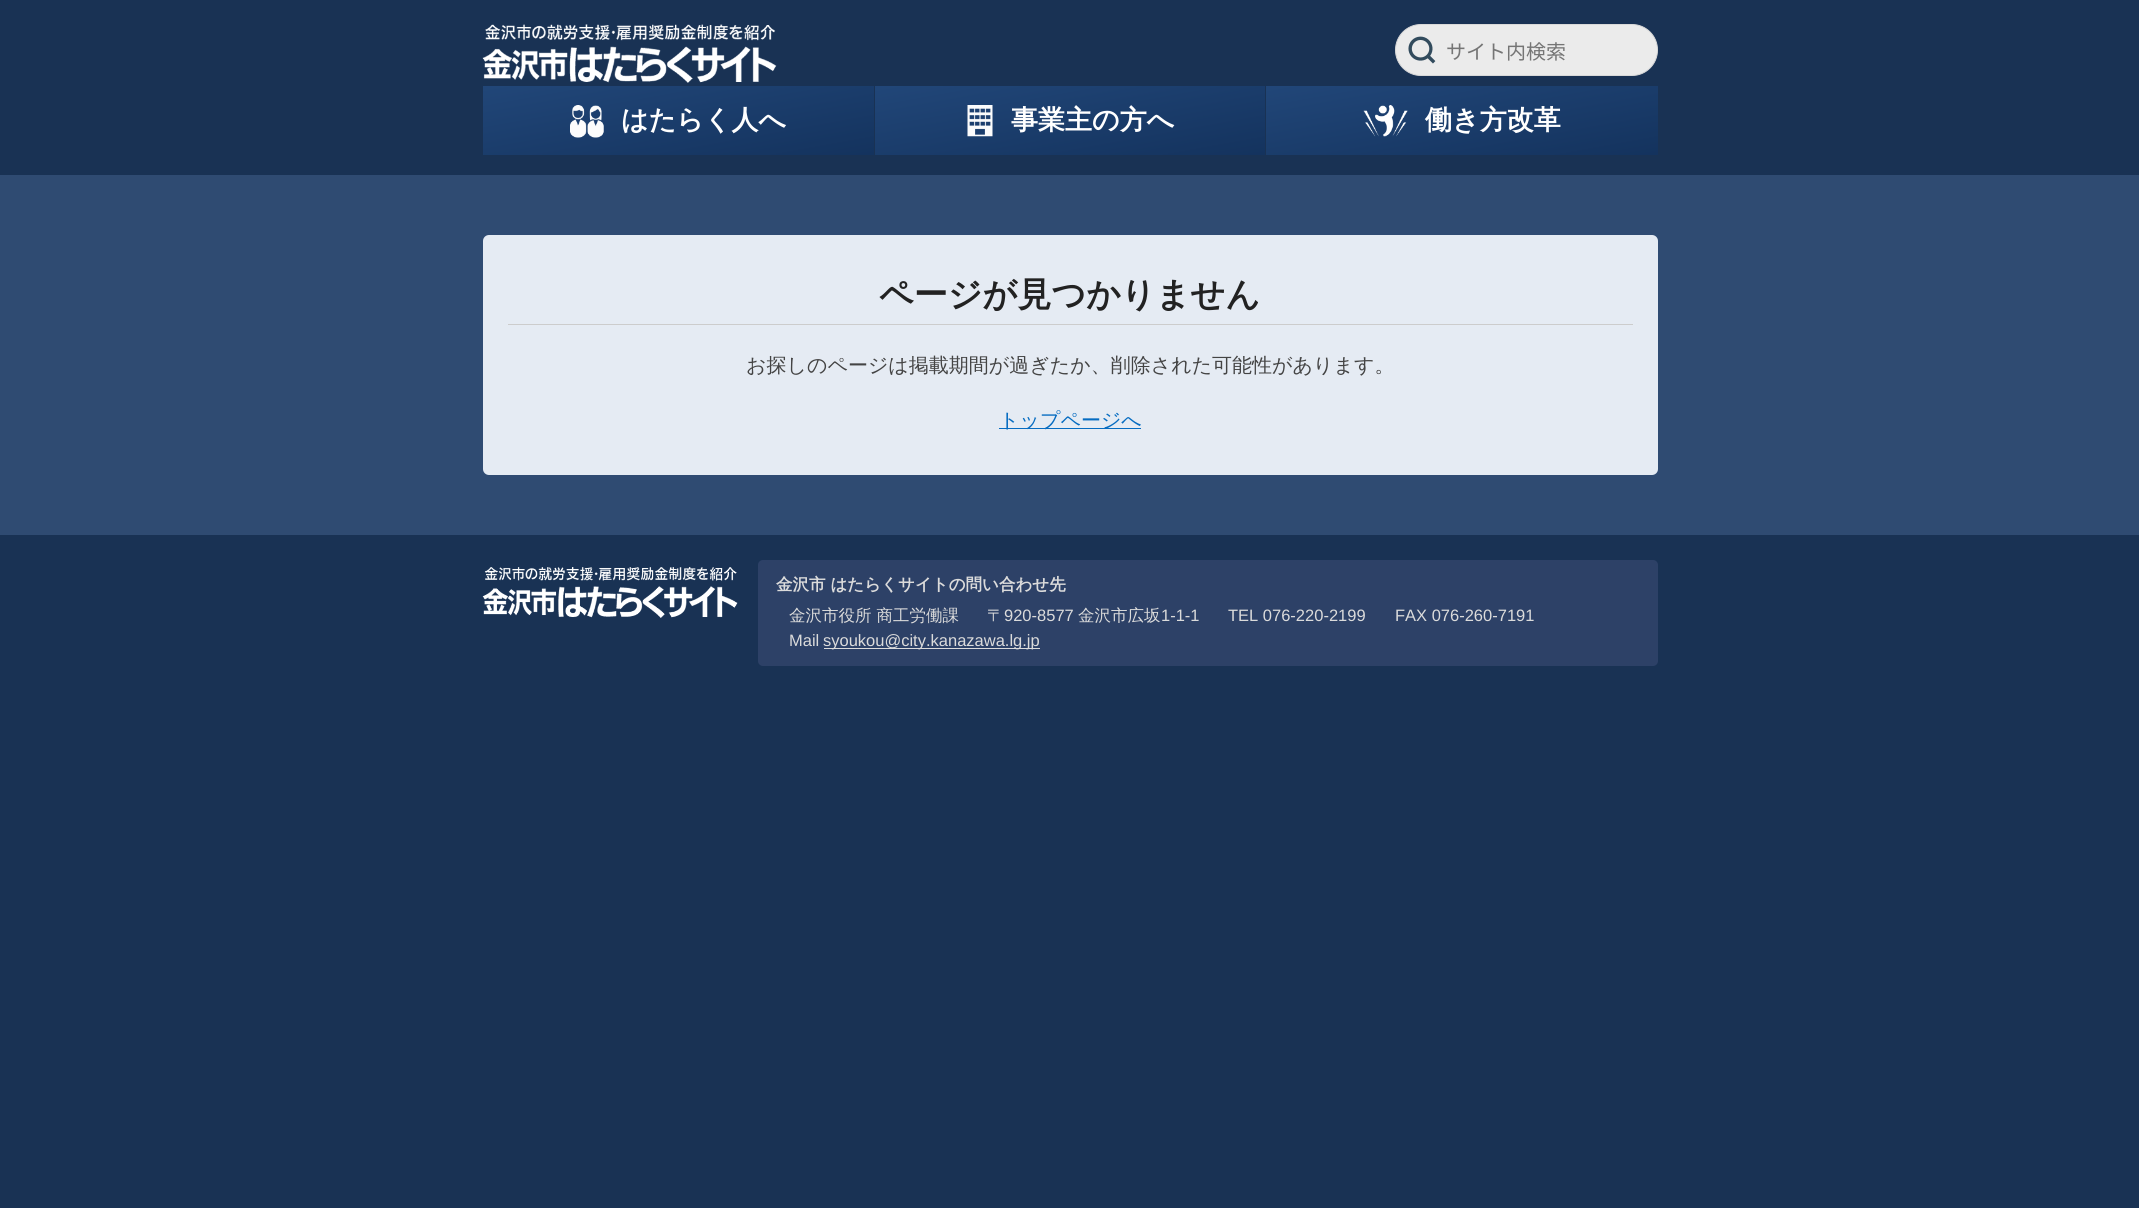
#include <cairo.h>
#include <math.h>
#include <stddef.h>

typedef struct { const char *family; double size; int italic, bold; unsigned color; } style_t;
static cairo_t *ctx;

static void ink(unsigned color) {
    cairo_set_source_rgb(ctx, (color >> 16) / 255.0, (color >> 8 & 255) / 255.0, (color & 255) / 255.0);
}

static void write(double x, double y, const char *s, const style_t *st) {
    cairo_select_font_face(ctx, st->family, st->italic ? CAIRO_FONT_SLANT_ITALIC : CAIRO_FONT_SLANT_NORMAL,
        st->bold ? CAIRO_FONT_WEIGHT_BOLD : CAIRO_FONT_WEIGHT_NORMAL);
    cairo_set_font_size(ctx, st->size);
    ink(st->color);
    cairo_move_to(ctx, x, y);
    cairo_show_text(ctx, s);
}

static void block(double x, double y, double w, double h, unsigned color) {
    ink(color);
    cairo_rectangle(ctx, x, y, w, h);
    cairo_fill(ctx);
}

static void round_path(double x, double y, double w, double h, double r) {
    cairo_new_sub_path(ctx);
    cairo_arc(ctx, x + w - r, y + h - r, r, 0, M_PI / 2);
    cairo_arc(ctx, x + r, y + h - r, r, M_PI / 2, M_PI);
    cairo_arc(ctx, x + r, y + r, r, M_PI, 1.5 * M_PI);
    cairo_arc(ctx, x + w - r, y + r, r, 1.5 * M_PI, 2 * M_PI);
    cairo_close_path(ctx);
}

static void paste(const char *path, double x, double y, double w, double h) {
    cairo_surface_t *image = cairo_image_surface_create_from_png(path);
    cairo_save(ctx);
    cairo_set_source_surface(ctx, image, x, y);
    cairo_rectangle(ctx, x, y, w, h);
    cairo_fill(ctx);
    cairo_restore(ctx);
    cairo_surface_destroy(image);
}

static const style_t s1 = {"Noto Sans JP", 20, 0, 0, 0x757575};
static const style_t s2 = {"WenQuanYi Zen Hei", 27, 0, 1, 0xffffff};
static const style_t s3 = {"WenQuanYi Zen Hei", 34, 0, 1, 0x222222};
static const style_t s4 = {"WenQuanYi Zen Hei Medium", 20, 0, 0, 0x444444};
static const style_t s5 = {"WenQuanYi Zen Hei Medium", 20, 0, 0, 0x066cc1};
static const style_t s6 = {"WenQuanYi Zen Hei", 16.5, 0, 1, 0xdbdbdb};
static const style_t s7 = {"WenQuanYi Zen Hei Medium", 16.5, 0, 0, 0xdbdbdb};
static const style_t s8 = {"Liberation Sans", 16.5, 0, 0, 0xdbdbdb};

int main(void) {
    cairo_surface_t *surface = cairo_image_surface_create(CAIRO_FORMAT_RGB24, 2139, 1208);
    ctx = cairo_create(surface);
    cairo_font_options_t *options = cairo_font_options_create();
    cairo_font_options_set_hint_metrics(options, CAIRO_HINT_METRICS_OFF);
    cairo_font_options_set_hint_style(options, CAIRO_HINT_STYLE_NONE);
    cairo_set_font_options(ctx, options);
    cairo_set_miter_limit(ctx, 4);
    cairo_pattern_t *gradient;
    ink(0x193254);
    cairo_paint(ctx);
    paste("pic1.png", 482, 24, 295, 59);
    ink(0xebebeb);
    round_path(1395.5, 24.5, 262, 51, 25.5);
    cairo_fill_preserve(ctx);
    ink(0xd9d9d9);
    cairo_set_line_width(ctx, 1);
    cairo_stroke(ctx);
    paste("pic2.png", 1408, 36, 28, 28);
    write(1446, 59, "サイト内検索", &s1);
    gradient = cairo_pattern_create_linear(666, 54, 690, 187);
    cairo_pattern_add_color_stop_rgba(gradient, 0, 0.129, 0.275, 0.471, 1);
    cairo_pattern_add_color_stop_rgba(gradient, 1, 0.078, 0.2, 0.369, 1);
    cairo_set_source(ctx, gradient);
    cairo_pattern_destroy(gradient);
    cairo_rectangle(ctx, 483, 86, 391, 69);
    cairo_fill(ctx);
    paste("pic3.png", 570, 105, 34, 33);
    write(621, 129, "はたらく人へ", &s2);
    gradient = cairo_pattern_create_linear(1058, 54, 1082, 187);
    cairo_pattern_add_color_stop_rgba(gradient, 0, 0.129, 0.275, 0.471, 1);
    cairo_pattern_add_color_stop_rgba(gradient, 1, 0.078, 0.2, 0.369, 1);
    cairo_set_source(ctx, gradient);
    cairo_pattern_destroy(gradient);
    cairo_rectangle(ctx, 875, 86, 390, 69);
    cairo_fill(ctx);
    paste("pic4.png", 967, 105, 26, 32);
    write(1011, 129, "事業主の方へ", &s2);
    gradient = cairo_pattern_create_linear(1450, 54, 1474, 187);
    cairo_pattern_add_color_stop_rgba(gradient, 0, 0.129, 0.275, 0.471, 1);
    cairo_pattern_add_color_stop_rgba(gradient, 1, 0.078, 0.2, 0.369, 1);
    cairo_set_source(ctx, gradient);
    cairo_pattern_destroy(gradient);
    cairo_rectangle(ctx, 1266, 86, 392, 69);
    cairo_fill(ctx);
    paste("pic5.png", 1363, 105, 45, 32);
    write(1425, 129, "働き方改革", &s2);
    block(0, 175, 2139, 360, 0x2f4b72);
    ink(0xe5ebf3);
    round_path(483, 235, 1175, 240, 6);
    cairo_fill(ctx);
    block(508, 324, 1125, 1, 0xcccccc);
    write(879, 306, "ページが見つかりません", &s3);
    write(746, 372, "お探しのページは掲載期間が過ぎたか、削除された可能性があります。", &s4);
    block(999, 428, 142, 1, 0x066cc1);
    write(999, 427, "トップページへ", &s5);
    paste("pic6.png", 482, 567, 256, 51);
    ink(0x2d4167);
    round_path(758, 560, 900, 106, 5);
    cairo_fill(ctx);
    write(776, 590, "金沢市 はたらくサイトの問い合わせ先", &s6);
    write(789, 621, "金沢市役所 商工労働課", &s7);
    write(987, 621, "〒", &s7);
    write(1004, 621, "920-8577", &s8);
    write(1078, 621, "金沢市広坂", &s7);
    write(1161, 621, "1-1-1", &s8);
    write(1228, 621, "TEL 076-220-2199", &s8);
    write(1395, 621, "FAX 076-260-7191", &s8);
    write(789, 646, "Mail", &s8);
    block(824, 648, 216, 1, 0xdbdbdb);
    write(823, 646, "syoukou@city.kanazawa.lg.jp", &s8);
    cairo_surface_write_to_png(surface, "screenshot.png");
    cairo_font_options_destroy(options);
    cairo_destroy(ctx);
    cairo_surface_destroy(surface);
    return 0;
}
